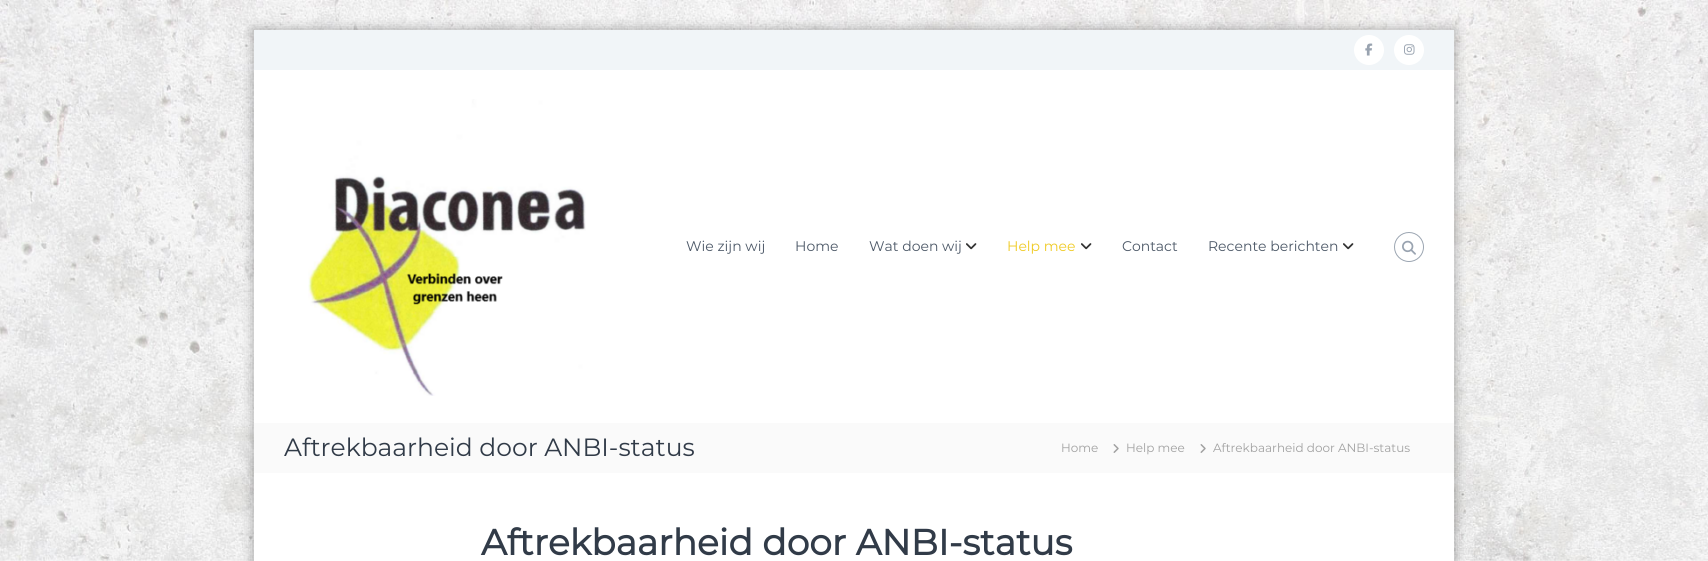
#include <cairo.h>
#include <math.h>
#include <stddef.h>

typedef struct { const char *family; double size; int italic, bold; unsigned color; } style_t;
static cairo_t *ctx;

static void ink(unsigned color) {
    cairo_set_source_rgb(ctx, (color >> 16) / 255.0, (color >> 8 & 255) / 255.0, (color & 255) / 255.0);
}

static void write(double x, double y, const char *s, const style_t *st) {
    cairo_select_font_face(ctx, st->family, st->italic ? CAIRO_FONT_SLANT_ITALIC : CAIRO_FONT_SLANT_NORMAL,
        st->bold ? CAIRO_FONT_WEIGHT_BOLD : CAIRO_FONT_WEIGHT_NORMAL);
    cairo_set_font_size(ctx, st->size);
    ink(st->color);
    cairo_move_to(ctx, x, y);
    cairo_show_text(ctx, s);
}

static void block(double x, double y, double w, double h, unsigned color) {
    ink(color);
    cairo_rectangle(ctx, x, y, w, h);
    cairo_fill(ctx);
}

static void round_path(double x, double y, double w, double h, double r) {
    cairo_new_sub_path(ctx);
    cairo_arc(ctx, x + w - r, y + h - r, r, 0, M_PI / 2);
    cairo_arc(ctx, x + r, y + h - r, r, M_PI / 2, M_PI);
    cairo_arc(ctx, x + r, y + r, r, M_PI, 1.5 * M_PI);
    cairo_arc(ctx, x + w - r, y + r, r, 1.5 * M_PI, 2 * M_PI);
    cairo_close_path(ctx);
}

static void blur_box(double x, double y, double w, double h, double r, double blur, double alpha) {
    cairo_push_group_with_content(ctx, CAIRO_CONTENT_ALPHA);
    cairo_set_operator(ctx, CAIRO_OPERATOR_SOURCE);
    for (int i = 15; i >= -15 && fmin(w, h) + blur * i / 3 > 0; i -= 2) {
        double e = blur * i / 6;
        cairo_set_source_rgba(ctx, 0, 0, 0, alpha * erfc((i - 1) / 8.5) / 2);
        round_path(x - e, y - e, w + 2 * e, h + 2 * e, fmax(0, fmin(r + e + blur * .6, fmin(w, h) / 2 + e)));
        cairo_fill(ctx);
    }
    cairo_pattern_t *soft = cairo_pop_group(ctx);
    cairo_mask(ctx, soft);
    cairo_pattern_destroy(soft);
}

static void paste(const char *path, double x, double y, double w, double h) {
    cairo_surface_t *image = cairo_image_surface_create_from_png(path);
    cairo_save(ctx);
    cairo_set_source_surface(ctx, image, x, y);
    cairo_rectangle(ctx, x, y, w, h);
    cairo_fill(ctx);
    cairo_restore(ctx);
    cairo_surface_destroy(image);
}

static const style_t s1 = {"Montserrat", 14, 0, 0, 0x4c5867};
static const style_t s2 = {"Montserrat", 14, 0, 0, 0xefca23};
static const style_t s3 = {"Montserrat", 25, 0, 0, 0x313b48};
static const style_t s4 = {"Montserrat", 12, 0, 0, 0xa1a1a1};
static const style_t s5 = {"Montserrat", 36, 0, 1, 0x313b48};

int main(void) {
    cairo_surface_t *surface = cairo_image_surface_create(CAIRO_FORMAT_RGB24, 1708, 561);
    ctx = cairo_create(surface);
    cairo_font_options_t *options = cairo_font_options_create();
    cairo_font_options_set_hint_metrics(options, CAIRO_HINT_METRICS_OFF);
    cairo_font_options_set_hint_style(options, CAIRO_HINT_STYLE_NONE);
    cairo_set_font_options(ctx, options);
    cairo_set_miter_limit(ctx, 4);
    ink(0xffffff);
    cairo_paint(ctx);
    paste("pic1.png", 0, 0, 1708, 561);
    ink(0x000000);
    blur_box(253, 29, 1202, 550, 0, 6, 0.3);
    block(254, 70, 1200, 491, 0xffffff);
    block(254, 30, 1200, 40, 0xf1f5f8);
    ink(0xffffff);
    cairo_arc(ctx, 1369, 50, 15, 0, 2 * M_PI);
    cairo_fill(ctx);
    paste("pic2.png", 1365, 43, 8, 13);
    cairo_arc(ctx, 1409, 50, 15, 0, 2 * M_PI);
    cairo_fill(ctx);
    paste("pic3.png", 1404, 44, 11, 11);
    paste("pic4.png", 308, 99, 278, 297);
    write(686, 251, "Wie zijn wij", &s1);
    write(795, 251, "Home", &s1);
    write(869, 251, "Wat doen wij", &s1);
    paste("pic5.png", 966, 243, 11, 7);
    write(1007, 251, "Help mee", &s2);
    paste("pic5.png", 1081, 243, 11, 7);
    write(1122, 251, "Contact", &s1);
    write(1208, 251, "Recente berichten", &s1);
    paste("pic5.png", 1343, 243, 11, 7);
    cairo_arc(ctx, 1409, 247, 14.5, 0, 2 * M_PI);
    ink(0x9ca6b2);
    cairo_set_line_width(ctx, 1);
    cairo_stroke(ctx);
    paste("pic6.png", 1402, 240, 14, 15);
    block(254, 423, 1200, 50, 0xfafafa);
    write(284, 456, "Aftrekbaarheid door ANBI-status", &s3);
    write(1061, 452, "Home", &s4);
    paste("pic7.png", 1113, 444, 6, 9);
    write(1126, 452, "Help mee", &s4);
    paste("pic7.png", 1200, 444, 6, 9);
    write(1213, 452, "Aftrekbaarheid door ANBI-status", &s4);
    write(481, 555, "Aftrekbaarheid door ANBI-status", &s5);
    cairo_surface_write_to_png(surface, "screenshot.png");
    cairo_font_options_destroy(options);
    cairo_destroy(ctx);
    cairo_surface_destroy(surface);
    return 0;
}
